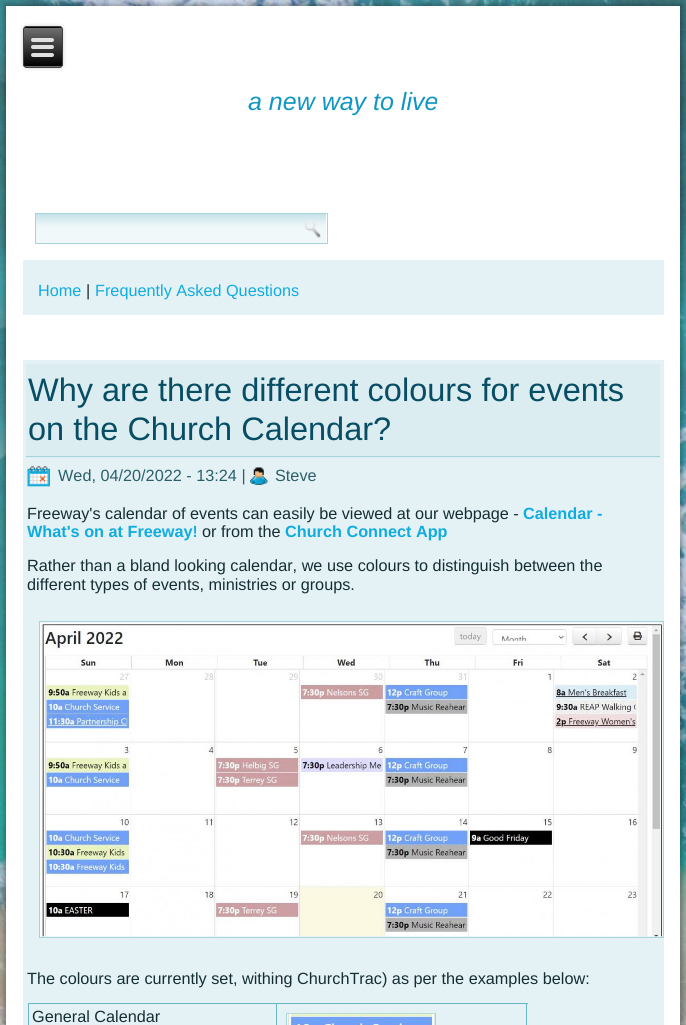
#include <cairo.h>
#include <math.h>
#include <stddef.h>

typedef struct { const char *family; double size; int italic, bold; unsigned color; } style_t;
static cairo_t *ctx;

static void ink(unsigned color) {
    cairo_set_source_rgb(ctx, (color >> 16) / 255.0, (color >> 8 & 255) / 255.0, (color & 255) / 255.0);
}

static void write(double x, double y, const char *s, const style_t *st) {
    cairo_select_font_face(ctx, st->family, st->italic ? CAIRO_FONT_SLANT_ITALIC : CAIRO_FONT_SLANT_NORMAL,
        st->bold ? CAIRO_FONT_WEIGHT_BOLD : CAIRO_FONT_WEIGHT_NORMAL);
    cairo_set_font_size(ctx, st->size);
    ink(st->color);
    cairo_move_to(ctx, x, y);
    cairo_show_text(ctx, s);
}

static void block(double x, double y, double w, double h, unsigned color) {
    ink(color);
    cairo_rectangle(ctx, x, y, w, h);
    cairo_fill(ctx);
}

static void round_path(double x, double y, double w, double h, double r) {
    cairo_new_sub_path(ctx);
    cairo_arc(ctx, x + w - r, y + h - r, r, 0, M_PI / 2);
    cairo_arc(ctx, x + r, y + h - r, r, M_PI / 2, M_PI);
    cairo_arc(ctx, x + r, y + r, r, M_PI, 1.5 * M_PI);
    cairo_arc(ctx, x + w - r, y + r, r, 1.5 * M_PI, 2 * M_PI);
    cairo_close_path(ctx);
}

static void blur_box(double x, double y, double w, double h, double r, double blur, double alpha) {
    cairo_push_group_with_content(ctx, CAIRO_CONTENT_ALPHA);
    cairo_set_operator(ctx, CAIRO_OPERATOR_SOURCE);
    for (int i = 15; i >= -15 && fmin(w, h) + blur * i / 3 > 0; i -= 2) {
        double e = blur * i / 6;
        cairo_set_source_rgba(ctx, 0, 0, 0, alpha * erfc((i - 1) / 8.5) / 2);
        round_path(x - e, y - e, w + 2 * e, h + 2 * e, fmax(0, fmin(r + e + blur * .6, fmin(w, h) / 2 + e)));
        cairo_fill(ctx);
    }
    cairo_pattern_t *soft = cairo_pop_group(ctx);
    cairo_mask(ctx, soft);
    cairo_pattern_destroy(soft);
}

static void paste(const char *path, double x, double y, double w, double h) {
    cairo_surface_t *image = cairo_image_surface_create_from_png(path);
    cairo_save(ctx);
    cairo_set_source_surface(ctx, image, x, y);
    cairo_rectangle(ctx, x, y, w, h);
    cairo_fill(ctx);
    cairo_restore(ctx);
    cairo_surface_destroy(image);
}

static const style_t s1 = {"Liberation Sans", 25, 1, 0, 0x0f96c2};
static const style_t s2 = {"Liberation Sans", 16.25, 0, 0, 0x10acdf};
static const style_t s3 = {"Liberation Sans", 16.25, 0, 0, 0x142e33};
static const style_t s4 = {"Liberation Sans", 32.5, 0, 0, 0x074d64};
static const style_t s5 = {"Liberation Sans", 16.25, 0, 0, 0x2a5f6a};
static const style_t s6 = {"Liberation Sans", 16.25, 0, 1, 0x10acdf};

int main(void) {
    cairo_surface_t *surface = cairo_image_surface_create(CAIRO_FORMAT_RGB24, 686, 1025);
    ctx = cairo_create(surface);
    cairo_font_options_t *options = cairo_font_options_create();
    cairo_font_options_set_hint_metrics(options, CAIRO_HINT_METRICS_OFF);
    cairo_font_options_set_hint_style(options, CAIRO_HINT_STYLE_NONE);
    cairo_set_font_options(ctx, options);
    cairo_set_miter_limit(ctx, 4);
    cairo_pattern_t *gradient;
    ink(0xffffff);
    cairo_paint(ctx);
    paste("pic1.png", 0, 0, 686, 1025);
    ink(0x000000);
    blur_box(4, 4, 679, 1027, 0, 2, 0.25);
    block(6, 6, 674, 1019, 0xffffff);
    ink(0x000000);
    blur_box(23, 26, 40, 42, 4, 2, 0.2);
    cairo_save(ctx);
    round_path(23, 26, 40, 42, 4);
    cairo_clip(ctx);
    gradient = cairo_pattern_create_linear(43, -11, 43, 28);
    cairo_pattern_add_color_stop_rgba(gradient, 0, 0.439, 0.439, 0.439, 1);
    cairo_pattern_add_color_stop_rgba(gradient, 1, 0, 0, 0, 1);
    cairo_set_source(ctx, gradient);
    cairo_pattern_destroy(gradient);
    cairo_rectangle(ctx, 23, 26, 40, 2);
    cairo_fill(ctx);
    gradient = cairo_pattern_create_linear(43, 28, 43, 66);
    cairo_pattern_add_color_stop_rgba(gradient, 0, 0.439, 0.439, 0.439, 1);
    cairo_pattern_add_color_stop_rgba(gradient, 1, 0, 0, 0, 1);
    cairo_set_source(ctx, gradient);
    cairo_pattern_destroy(gradient);
    cairo_rectangle(ctx, 23, 28, 40, 38);
    cairo_fill(ctx);
    gradient = cairo_pattern_create_linear(43, 66, 43, 105);
    cairo_pattern_add_color_stop_rgba(gradient, 0, 0.439, 0.439, 0.439, 1);
    cairo_pattern_add_color_stop_rgba(gradient, 1, 0, 0, 0, 1);
    cairo_set_source(ctx, gradient);
    cairo_pattern_destroy(gradient);
    cairo_rectangle(ctx, 23, 66, 40, 2);
    cairo_fill(ctx);
    cairo_restore(ctx);
    round_path(23.5, 26.5, 39, 41, 3.5);
    ink(0x404040);
    cairo_set_line_width(ctx, 1);
    cairo_stroke(ctx);
    ink(0xe0e0e0);
    round_path(31, 38, 23, 4, 2);
    cairo_fill(ctx);
    round_path(31, 45, 23, 4, 2);
    cairo_fill(ctx);
    round_path(31, 53, 23, 4, 2);
    cairo_fill(ctx);
    write(248, 110, "a new way to live", &s1);
    gradient = cairo_pattern_create_linear(181, 214, 181, 243);
    cairo_pattern_add_color_stop_rgba(gradient, 0, 0.773, 0.886, 0.91, 1);
    cairo_pattern_add_color_stop_rgba(gradient, 0.4, 0.929, 0.965, 0.973, 1);
    cairo_pattern_add_color_stop_rgba(gradient, 0.5, 0.941, 0.973, 0.976, 1);
    cairo_pattern_add_color_stop_rgba(gradient, 1, 0.941, 0.973, 0.976, 1);
    cairo_set_source(ctx, gradient);
    cairo_pattern_destroy(gradient);
    cairo_rectangle(ctx, 36, 214, 290, 29);
    cairo_fill(ctx);
    cairo_rectangle(ctx, 35.5, 213.5, 292, 30);
    ink(0xa7d3dc);
    cairo_stroke(ctx);
    paste("pic2.png", 304, 220, 18, 18);
    block(23, 260, 641, 55, 0xe5f2f5);
    write(38, 296, "Home", &s2);
    write(86, 296, "|", &s3);
    write(95, 296, "Frequently Asked Questions", &s2);
    block(23, 360, 641, 665, 0xe5f2f5);
    block(26, 364, 634, 94, 0xdbedf1);
    block(26, 456, 634, 1, 0xa7d3dc);
    write(28, 401, "Why are there different colours for events", &s4);
    write(28, 440, "on the Church Calendar?", &s4);
    paste("pic3.png", 27, 466, 23, 21);
    write(58, 481, "Wed, 04/20/2022 - 13:24 |", &s5);
    paste("pic4.png", 250, 467, 18, 18);
    write(275, 481, "Steve", &s5);
    write(27, 519, "Freeway's calendar of events can easily be viewed at our webpage -", &s3);
    write(523, 519, "Calendar -", &s6);
    write(27, 537, "What's on at Freeway!", &s6);
    write(202, 537, "or from the", &s3);
    write(285, 537, "Church Connect App", &s6);
    write(27, 571, "Rather than a bland looking calendar, we use colours to distinguish between the", &s3);
    write(27, 590, "different types of events, ministries or groups.", &s3);
    cairo_rectangle(ctx, 39.5, 621.5, 624, 316);
    ink(0xa7d3dc);
    cairo_stroke(ctx);
    paste("pic5.png", 40, 622, 623, 315);
    write(27, 984, "The colours are currently set, withing ChurchTrac) as per the examples below:", &s3);
    block(276, 1003, 252, 1, 0x6db6c5);
    block(276, 1003, 1, 22, 0x6db6c5);
    block(28, 1003, 250, 1, 0x6db6c5);
    block(28, 1003, 1, 22, 0x6db6c5);
    write(32, 1022, "General Calendar", &s3);
    block(526, 1003, 1, 22, 0x6db6c5);
    cairo_rectangle(ctx, 286.5, 1013.5, 149, 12);
    ink(0xa7d3dc);
    cairo_stroke(ctx);
    paste("pic6.png", 287, 1013, 148, 12);
    cairo_surface_write_to_png(surface, "screenshot.png");
    cairo_font_options_destroy(options);
    cairo_destroy(ctx);
    cairo_surface_destroy(surface);
    return 0;
}
